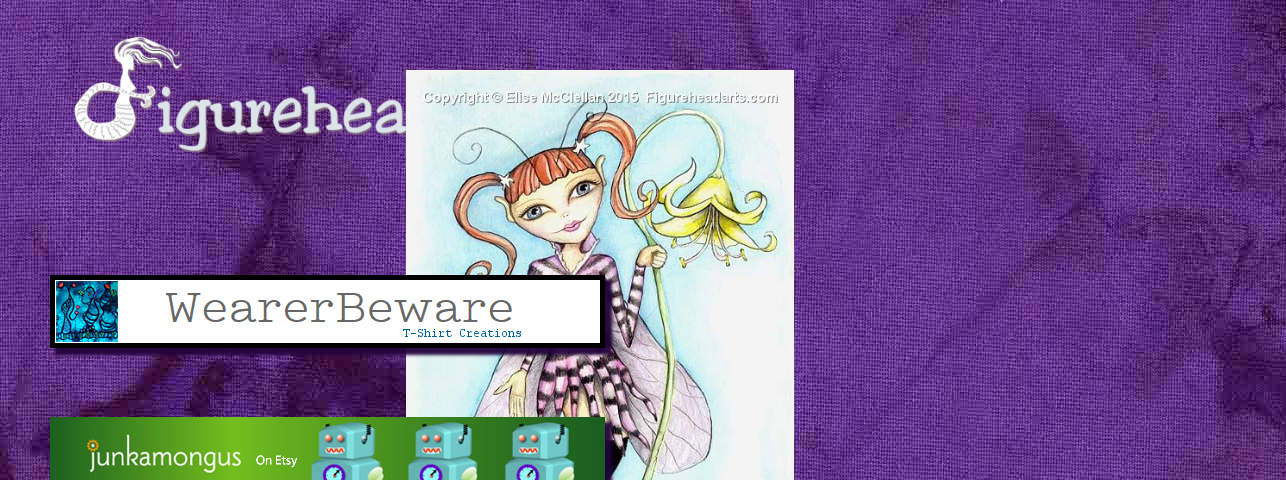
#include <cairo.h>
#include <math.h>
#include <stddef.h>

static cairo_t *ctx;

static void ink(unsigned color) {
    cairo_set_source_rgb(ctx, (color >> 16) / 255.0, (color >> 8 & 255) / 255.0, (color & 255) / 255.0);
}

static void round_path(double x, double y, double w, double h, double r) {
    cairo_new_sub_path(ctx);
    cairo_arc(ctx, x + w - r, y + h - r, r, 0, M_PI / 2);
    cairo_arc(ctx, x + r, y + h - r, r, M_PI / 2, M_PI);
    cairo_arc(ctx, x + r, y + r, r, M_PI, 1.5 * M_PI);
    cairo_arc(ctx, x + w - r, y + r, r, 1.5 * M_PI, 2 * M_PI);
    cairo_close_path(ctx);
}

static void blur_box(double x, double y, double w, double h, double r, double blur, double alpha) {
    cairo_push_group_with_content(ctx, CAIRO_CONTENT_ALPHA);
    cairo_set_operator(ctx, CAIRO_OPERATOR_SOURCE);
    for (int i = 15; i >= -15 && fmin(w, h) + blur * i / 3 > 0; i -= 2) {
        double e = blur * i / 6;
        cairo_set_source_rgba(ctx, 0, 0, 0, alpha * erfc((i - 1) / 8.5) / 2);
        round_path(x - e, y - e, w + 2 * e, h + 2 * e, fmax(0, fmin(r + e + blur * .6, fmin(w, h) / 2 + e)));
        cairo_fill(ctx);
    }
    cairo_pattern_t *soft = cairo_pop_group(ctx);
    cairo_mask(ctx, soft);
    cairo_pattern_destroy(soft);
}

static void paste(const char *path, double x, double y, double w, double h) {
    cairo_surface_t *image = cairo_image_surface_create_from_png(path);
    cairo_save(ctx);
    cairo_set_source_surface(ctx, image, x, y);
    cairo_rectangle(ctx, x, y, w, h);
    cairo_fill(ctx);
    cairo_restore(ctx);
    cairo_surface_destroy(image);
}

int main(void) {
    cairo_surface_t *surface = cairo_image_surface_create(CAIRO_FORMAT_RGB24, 1286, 480);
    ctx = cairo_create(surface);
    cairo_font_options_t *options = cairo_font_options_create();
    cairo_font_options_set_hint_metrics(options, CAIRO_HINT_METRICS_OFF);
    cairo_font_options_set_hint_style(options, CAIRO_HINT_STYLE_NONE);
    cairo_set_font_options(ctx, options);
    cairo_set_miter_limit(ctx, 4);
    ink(0xffffff);
    cairo_paint(ctx);
    paste("pic1.png", 0, 0, 1286, 480);
    paste("pic2.png", 74, 36, 332, 117);
    paste("pic3.png", 406, 70, 388, 410);
    ink(0x22033a);
    blur_box(55, 280, 557, 75, 0, 1.5, 0.95);
    paste("pic4.png", 50, 275, 555, 73);
    blur_box(55, 422, 557, 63, 0, 1.5, 0.95);
    paste("pic5.png", 50, 417, 555, 63);
    cairo_surface_write_to_png(surface, "screenshot.png");
    cairo_font_options_destroy(options);
    cairo_destroy(ctx);
    cairo_surface_destroy(surface);
    return 0;
}
